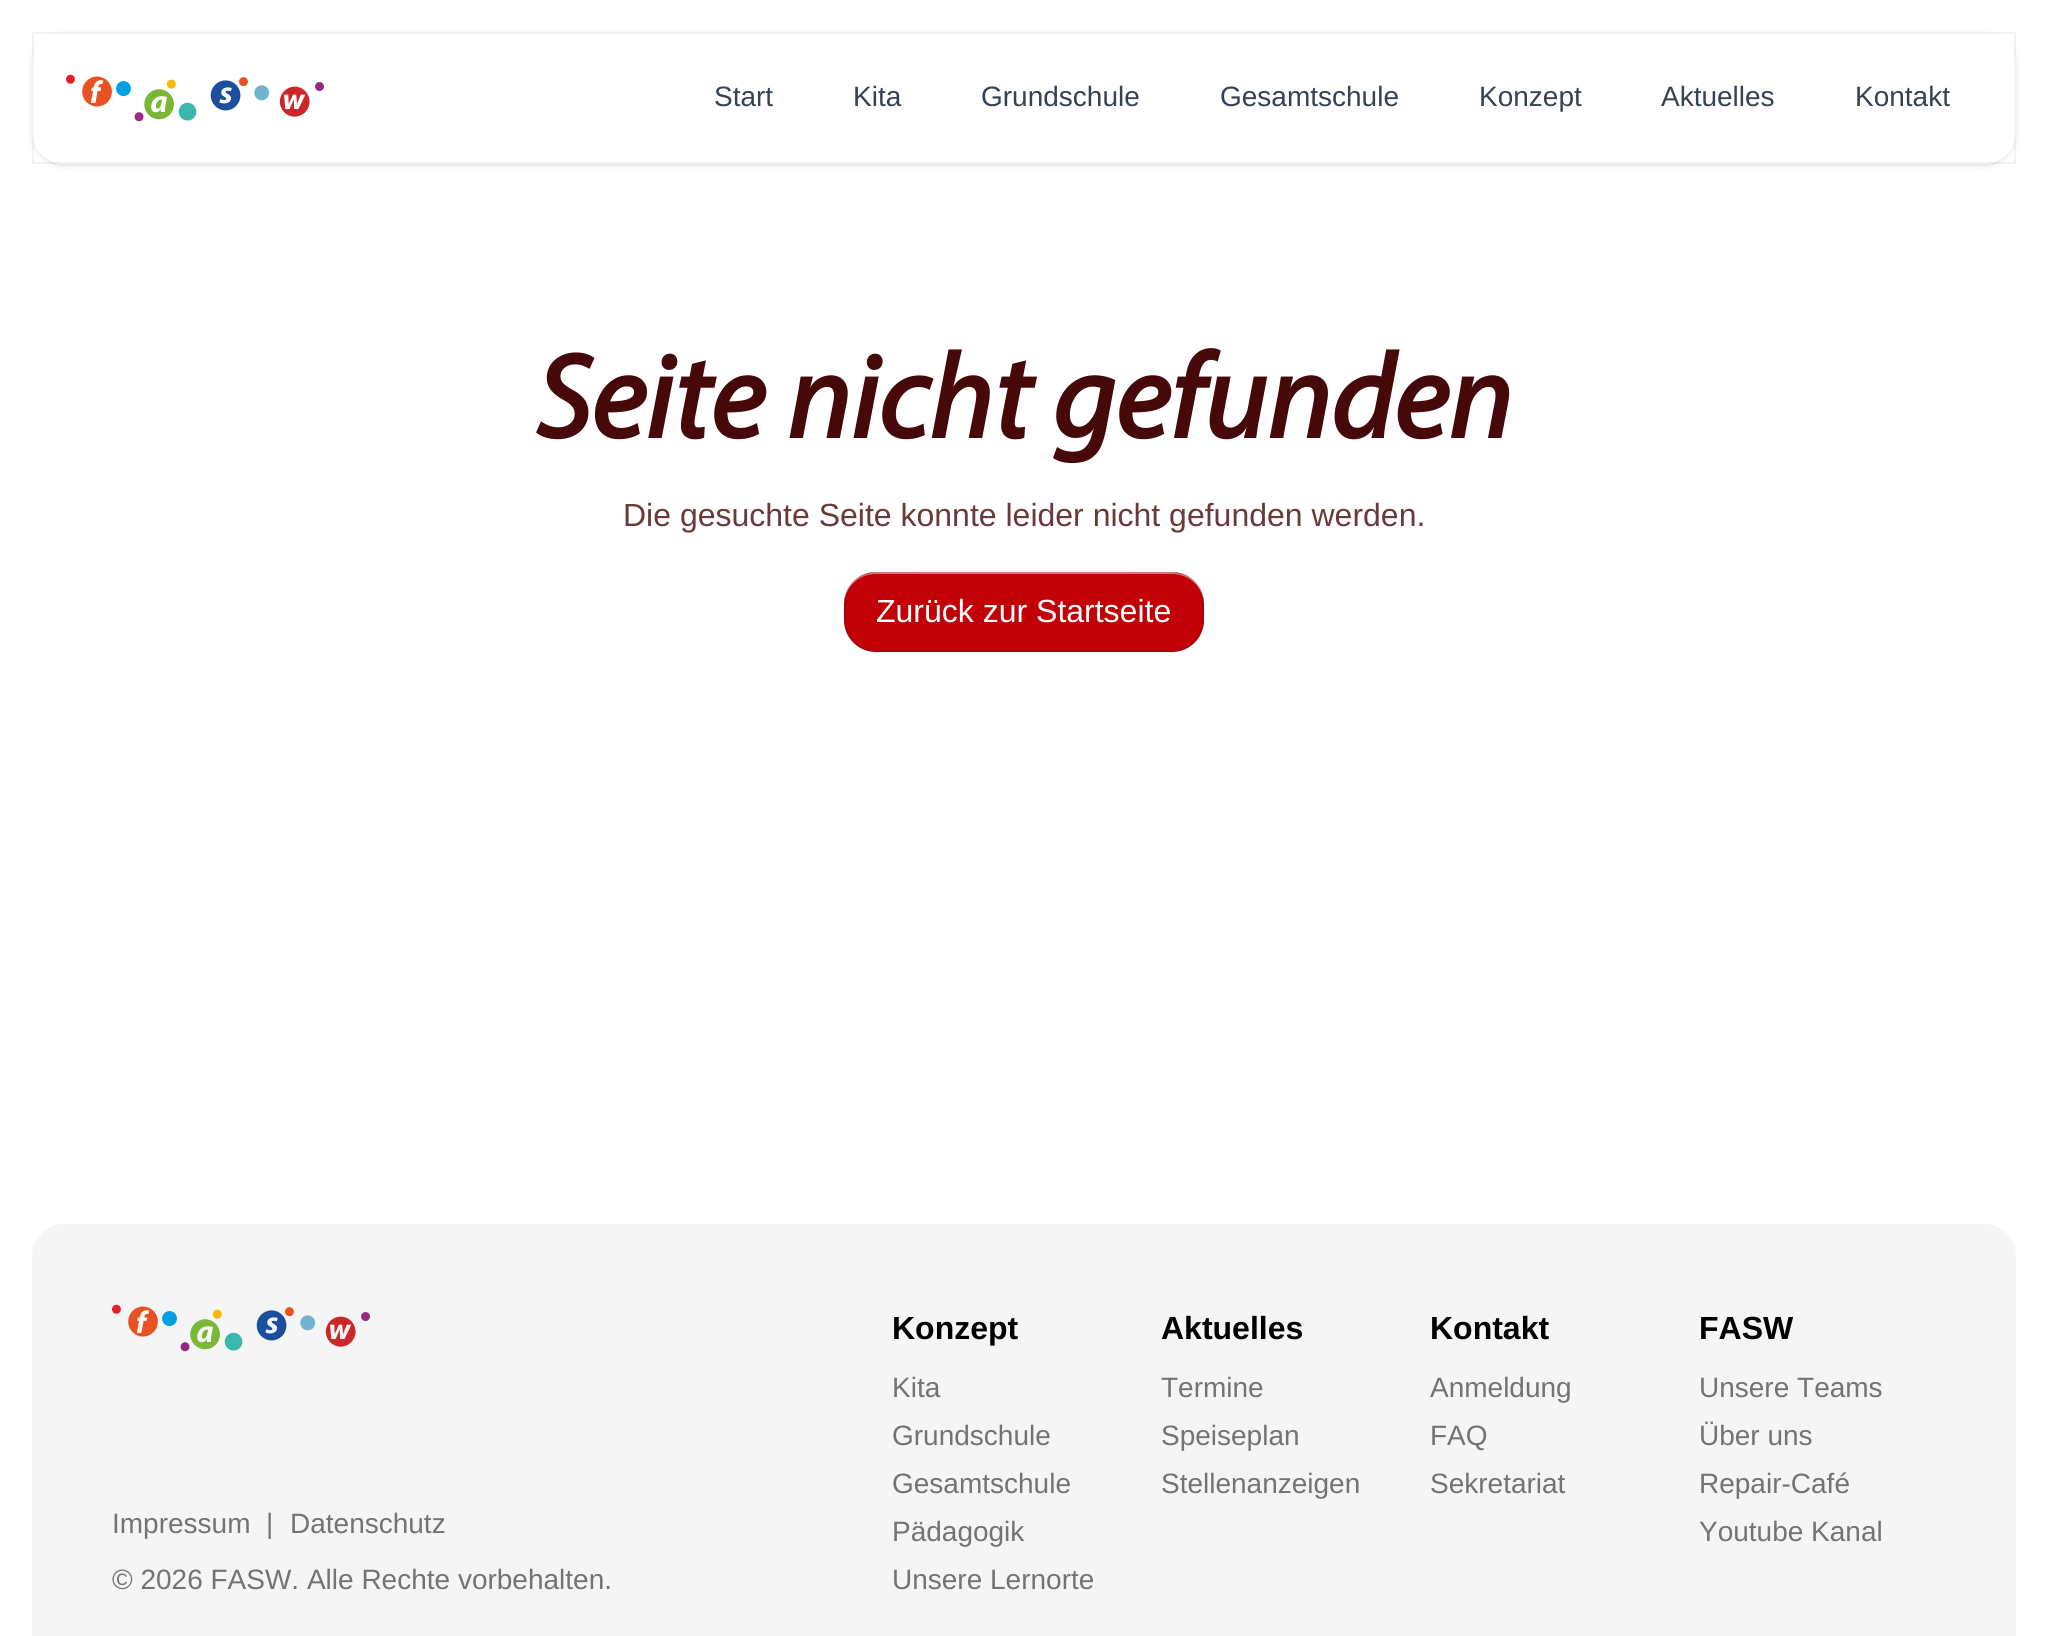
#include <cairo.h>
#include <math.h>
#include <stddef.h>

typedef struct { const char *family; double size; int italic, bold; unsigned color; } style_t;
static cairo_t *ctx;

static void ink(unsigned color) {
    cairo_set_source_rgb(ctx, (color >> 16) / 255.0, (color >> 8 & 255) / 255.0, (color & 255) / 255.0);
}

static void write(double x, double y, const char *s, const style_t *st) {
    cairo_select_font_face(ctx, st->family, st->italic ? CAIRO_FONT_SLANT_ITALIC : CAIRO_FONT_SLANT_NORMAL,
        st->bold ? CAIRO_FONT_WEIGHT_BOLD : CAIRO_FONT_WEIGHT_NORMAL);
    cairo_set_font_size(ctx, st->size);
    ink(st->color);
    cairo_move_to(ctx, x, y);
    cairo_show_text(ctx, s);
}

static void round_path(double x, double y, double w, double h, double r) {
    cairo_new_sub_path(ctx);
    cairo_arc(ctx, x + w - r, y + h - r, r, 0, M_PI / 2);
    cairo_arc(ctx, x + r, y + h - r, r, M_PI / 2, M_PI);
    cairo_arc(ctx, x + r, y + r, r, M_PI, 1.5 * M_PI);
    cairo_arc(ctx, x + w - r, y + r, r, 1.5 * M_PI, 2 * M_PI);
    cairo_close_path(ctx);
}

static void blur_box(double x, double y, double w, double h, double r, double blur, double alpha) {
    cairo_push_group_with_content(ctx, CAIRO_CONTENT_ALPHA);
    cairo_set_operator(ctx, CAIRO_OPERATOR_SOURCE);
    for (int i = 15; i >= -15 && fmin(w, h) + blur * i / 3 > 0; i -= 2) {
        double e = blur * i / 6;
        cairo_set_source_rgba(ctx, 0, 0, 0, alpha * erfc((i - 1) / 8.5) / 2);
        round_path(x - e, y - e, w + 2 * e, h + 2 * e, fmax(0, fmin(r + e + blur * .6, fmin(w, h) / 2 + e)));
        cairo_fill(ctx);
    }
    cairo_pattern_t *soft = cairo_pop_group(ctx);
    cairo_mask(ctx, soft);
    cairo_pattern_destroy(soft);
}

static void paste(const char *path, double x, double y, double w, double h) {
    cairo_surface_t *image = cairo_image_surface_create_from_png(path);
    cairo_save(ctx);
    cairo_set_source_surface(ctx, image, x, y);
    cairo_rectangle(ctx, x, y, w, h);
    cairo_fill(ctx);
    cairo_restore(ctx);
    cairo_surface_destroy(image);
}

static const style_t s1 = {"Liberation Sans", 28, 0, 0, 0x364153};
static const style_t s2 = {"Myriad", 120, 1, 1, 0x460809};
static const style_t s3 = {"Liberation Sans", 32, 0, 0, 0x6b393a};
static const style_t s4 = {"Liberation Sans", 32, 0, 0, 0xffffff};
static const style_t s5 = {"Liberation Sans", 32, 0, 1, 0x000000};
static const style_t s6 = {"Liberation Sans", 28, 0, 0, 0x737373};

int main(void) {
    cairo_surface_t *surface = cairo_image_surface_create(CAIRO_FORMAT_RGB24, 2048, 1636);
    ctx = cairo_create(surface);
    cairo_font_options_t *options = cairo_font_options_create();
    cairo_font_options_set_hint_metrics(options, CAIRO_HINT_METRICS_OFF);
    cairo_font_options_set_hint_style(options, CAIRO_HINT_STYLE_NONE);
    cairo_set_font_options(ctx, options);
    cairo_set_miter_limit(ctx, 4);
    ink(0xffffff);
    cairo_paint(ctx);
    cairo_save(ctx);
    cairo_set_fill_rule(ctx, CAIRO_FILL_RULE_EVEN_ODD);
    cairo_new_path(ctx);
    cairo_move_to(ctx, 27, 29);
    cairo_line_to(ctx, 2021, 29);
    cairo_line_to(ctx, 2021, 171);
    cairo_line_to(ctx, 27, 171);
    cairo_close_path(ctx);
    cairo_move_to(ctx, 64, 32);
    cairo_line_to(ctx, 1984, 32);
    cairo_curve_to(ctx, 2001.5, 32, 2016, 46.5, 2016, 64);
    cairo_line_to(ctx, 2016, 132);
    cairo_curve_to(ctx, 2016, 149.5, 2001.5, 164, 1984, 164);
    cairo_line_to(ctx, 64, 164);
    cairo_curve_to(ctx, 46.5, 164, 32, 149.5, 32, 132);
    cairo_line_to(ctx, 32, 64);
    cairo_curve_to(ctx, 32, 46.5, 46.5, 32, 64, 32);
    cairo_close_path(ctx);
    cairo_clip(ctx);
    ink(0x000000);
    blur_box(34, 36, 1980, 128, 30, 2, 0.1);
    cairo_restore(ctx);
    cairo_save(ctx);
    cairo_set_fill_rule(ctx, CAIRO_FILL_RULE_EVEN_ODD);
    cairo_new_path(ctx);
    cairo_move_to(ctx, 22, 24);
    cairo_line_to(ctx, 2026, 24);
    cairo_line_to(ctx, 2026, 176);
    cairo_line_to(ctx, 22, 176);
    cairo_close_path(ctx);
    cairo_move_to(ctx, 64, 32);
    cairo_line_to(ctx, 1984, 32);
    cairo_curve_to(ctx, 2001.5, 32, 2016, 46.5, 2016, 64);
    cairo_line_to(ctx, 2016, 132);
    cairo_curve_to(ctx, 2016, 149.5, 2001.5, 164, 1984, 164);
    cairo_line_to(ctx, 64, 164);
    cairo_curve_to(ctx, 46.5, 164, 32, 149.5, 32, 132);
    cairo_line_to(ctx, 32, 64);
    cairo_curve_to(ctx, 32, 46.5, 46.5, 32, 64, 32);
    cairo_close_path(ctx);
    cairo_clip(ctx);
    ink(0x000000);
    blur_box(32, 34, 1984, 132, 32, 3, 0.1);
    cairo_restore(ctx);
    cairo_set_source_rgba(ctx, 1, 1, 1, 0.85);
    round_path(32, 32, 1984, 132, 32);
    cairo_fill(ctx);
    cairo_rectangle(ctx, 33, 33, 1982, 130);
    cairo_set_source_rgba(ctx, 0.012, 0.027, 0.071, 0.05);
    cairo_stroke(ctx);
    paste("pic1.png", 66, 74, 258, 48);
    write(714, 106, "Start", &s1);
    write(853, 106, "Kita", &s1);
    write(981, 106, "Grundschule", &s1);
    write(1220, 106, "Gesamtschule", &s1);
    write(1479, 106, "Konzept", &s1);
    write(1661, 106, "Aktuelles", &s1);
    write(1855, 106, "Kontakt", &s1);
    write(535, 438, "Seite nicht gefunden", &s2);
    write(623, 526, "Die gesuchte Seite konnte leider nicht gefunden werden.", &s3);
    ink(0xc10007);
    round_path(844, 572, 360, 80, 32);
    cairo_fill(ctx);
    round_path(845, 573, 358, 78, 31);
    cairo_set_source_rgba(ctx, 0.275, 0.031, 0.035, 0.2);
    cairo_stroke(ctx);
    cairo_set_source_rgba(ctx, 0.996, 0.949, 0.949, 0.5);
    cairo_new_path(ctx);
    cairo_move_to(ctx, 876, 574);
    cairo_line_to(ctx, 1172, 574);
    cairo_curve_to(ctx, 1190, 574, 1204, 588, 1204, 606);
    cairo_curve_to(ctx, 1204, 561, 1151, 572, 1123, 572);
    cairo_line_to(ctx, 925, 572);
    cairo_curve_to(ctx, 897, 572, 844, 561, 844, 606);
    cairo_curve_to(ctx, 844, 588, 858, 574, 876, 574);
    cairo_close_path(ctx);
    cairo_fill(ctx);
    write(876, 622, "Zurück zur Startseite", &s4);
    ink(0xf5f5f5);
    round_path(32, 1224, 1984, 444, 32);
    cairo_fill(ctx);
    paste("pic2.png", 112, 1304, 258, 48);
    write(892, 1339, "Konzept", &s5);
    write(892, 1397, "Kita", &s6);
    write(892, 1445, "Grundschule", &s6);
    write(892, 1493, "Gesamtschule", &s6);
    write(892, 1541, "Pädagogik", &s6);
    write(892, 1589, "Unsere Lernorte", &s6);
    write(1161, 1339, "Aktuelles", &s5);
    write(1161, 1397, "Termine", &s6);
    write(1161, 1445, "Speiseplan", &s6);
    write(1161, 1493, "Stellenanzeigen", &s6);
    write(1430, 1339, "Kontakt", &s5);
    write(1430, 1397, "Anmeldung", &s6);
    write(1430, 1445, "FAQ", &s6);
    write(1430, 1493, "Sekretariat", &s6);
    write(1699, 1339, "FASW", &s5);
    write(1699, 1397, "Unsere Teams", &s6);
    write(1699, 1445, "Über uns", &s6);
    write(1699, 1493, "Repair-Café", &s6);
    write(1699, 1541, "Youtube Kanal", &s6);
    write(112, 1533, "Impressum", &s6);
    write(266, 1533, "|", &s6);
    write(290, 1533, "Datenschutz", &s6);
    write(112, 1589, "© 2026 FASW. Alle Rechte vorbehalten.", &s6);
    cairo_surface_write_to_png(surface, "screenshot.png");
    cairo_font_options_destroy(options);
    cairo_destroy(ctx);
    cairo_surface_destroy(surface);
    return 0;
}
